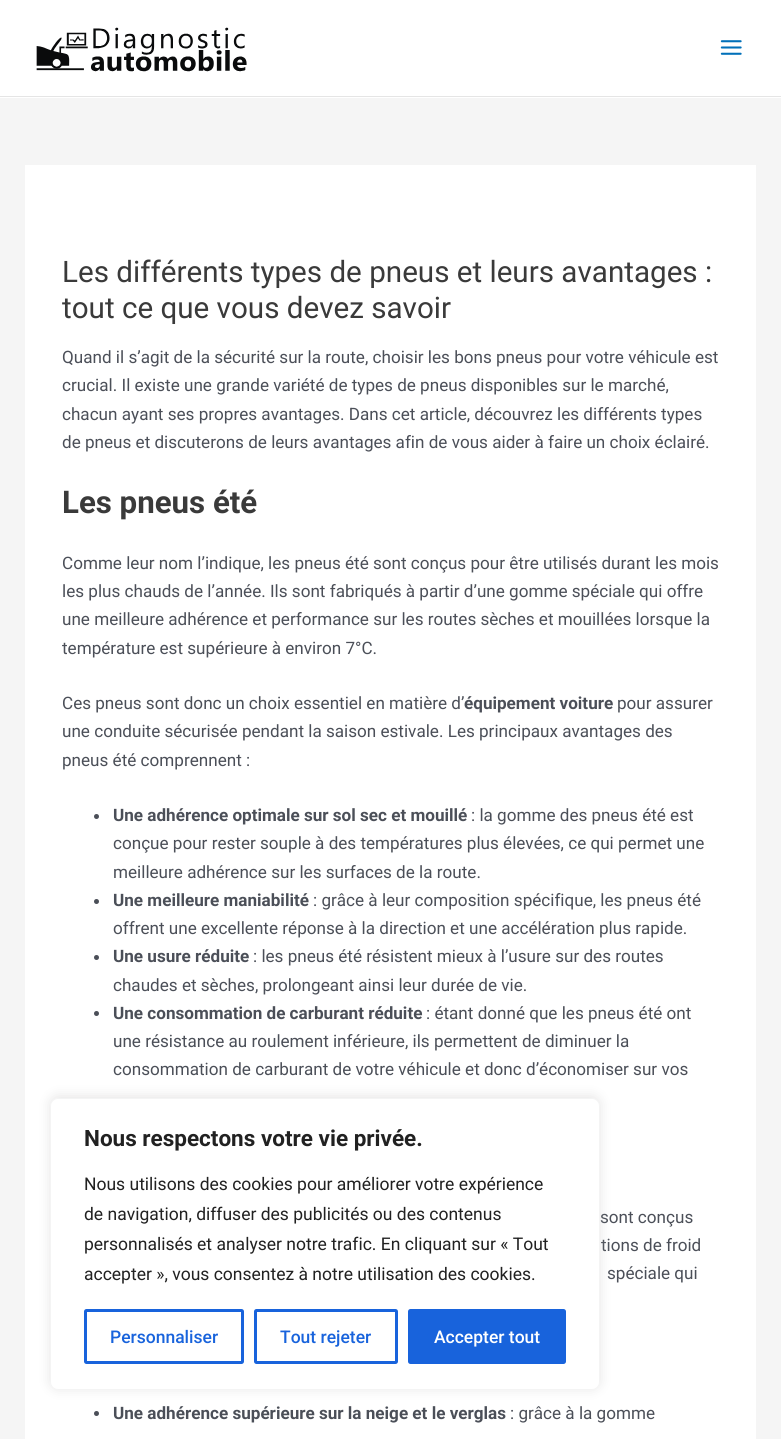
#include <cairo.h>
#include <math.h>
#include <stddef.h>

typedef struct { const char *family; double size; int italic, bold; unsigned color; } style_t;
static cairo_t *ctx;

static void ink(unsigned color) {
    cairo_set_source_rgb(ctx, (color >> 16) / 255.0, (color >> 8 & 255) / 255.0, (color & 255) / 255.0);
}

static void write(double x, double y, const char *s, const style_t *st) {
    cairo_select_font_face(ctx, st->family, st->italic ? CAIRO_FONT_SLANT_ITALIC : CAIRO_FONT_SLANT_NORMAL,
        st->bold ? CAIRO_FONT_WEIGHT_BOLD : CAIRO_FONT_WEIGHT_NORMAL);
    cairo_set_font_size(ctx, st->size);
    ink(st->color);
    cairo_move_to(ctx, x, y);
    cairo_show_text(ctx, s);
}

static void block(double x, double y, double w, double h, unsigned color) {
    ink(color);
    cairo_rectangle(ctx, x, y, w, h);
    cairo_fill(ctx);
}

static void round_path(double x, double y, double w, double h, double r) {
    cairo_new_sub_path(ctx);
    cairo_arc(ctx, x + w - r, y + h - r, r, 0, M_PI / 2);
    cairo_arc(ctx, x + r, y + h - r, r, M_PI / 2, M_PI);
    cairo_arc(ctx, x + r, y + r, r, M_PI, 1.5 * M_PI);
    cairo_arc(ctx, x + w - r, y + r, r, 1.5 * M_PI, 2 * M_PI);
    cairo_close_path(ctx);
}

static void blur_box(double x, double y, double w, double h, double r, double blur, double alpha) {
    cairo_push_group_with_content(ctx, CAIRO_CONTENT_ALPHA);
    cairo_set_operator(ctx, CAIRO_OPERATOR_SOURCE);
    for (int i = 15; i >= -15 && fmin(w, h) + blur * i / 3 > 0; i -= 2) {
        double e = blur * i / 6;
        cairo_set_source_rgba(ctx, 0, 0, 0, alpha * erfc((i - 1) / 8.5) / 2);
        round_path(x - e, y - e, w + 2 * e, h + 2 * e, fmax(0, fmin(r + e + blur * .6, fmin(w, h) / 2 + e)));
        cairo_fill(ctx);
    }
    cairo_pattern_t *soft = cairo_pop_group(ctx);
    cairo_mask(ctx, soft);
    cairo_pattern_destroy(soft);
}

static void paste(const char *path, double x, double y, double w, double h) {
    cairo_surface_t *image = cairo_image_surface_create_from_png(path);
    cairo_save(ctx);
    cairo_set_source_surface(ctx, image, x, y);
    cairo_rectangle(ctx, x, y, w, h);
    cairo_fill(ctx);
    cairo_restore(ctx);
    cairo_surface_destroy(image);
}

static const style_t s1 = {"Roboto", 29.6, 0, 0, 0x3a3a3a};
static const style_t s2 = {"Roboto", 17.1, 0, 0, 0x4b4f58};
static const style_t s3 = {"Roboto", 31.25, 0, 1, 0x3a3a3a};
static const style_t s4 = {"Roboto", 17.1, 0, 1, 0x4b4f58};
static const style_t s5 = {"Roboto", 22.5, 0, 1, 0x212121};
static const style_t s6 = {"Roboto", 17.5, 0, 0, 0x212121};
static const style_t s7 = {"Roboto Medium", 17.5, 0, 0, 0x1863dc};
static const style_t s8 = {"Roboto Medium", 17.5, 0, 0, 0xffffff};

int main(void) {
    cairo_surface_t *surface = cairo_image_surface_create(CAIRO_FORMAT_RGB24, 781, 1439);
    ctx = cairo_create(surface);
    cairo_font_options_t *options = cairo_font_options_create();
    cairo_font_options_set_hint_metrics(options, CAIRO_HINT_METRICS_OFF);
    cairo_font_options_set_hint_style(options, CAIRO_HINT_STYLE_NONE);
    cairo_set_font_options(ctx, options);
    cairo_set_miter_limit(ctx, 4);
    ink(0xf5f5f5);
    cairo_paint(ctx);
    block(0, 0, 781, 98, 0xffffff);
    block(0, 96, 781, 1, 0xe5e5e5);
    paste("pic1.png", 36, 27, 211, 45);
    paste("pic2.png", 720, 40, 22, 15);
    block(25, 165, 731, 1274, 0xffffff);
    write(62, 282, "Les différents types de pneus et leurs avantages :", &s1);
    write(62, 318, "tout ce que vous devez savoir", &s1);
    write(62, 363, "Quand il s’agit de la sécurité sur la route, choisir les bons pneus pour votre véhicule est", &s2);
    write(62, 391, "crucial. Il existe une grande variété de types de pneus disponibles sur le marché,", &s2);
    write(62, 420, "chacun ayant ses propres avantages. Dans cet article, découvrez les différents types", &s2);
    write(62, 448, "de pneus et discuterons de leurs avantages afin de vous aider à faire un choix éclairé.", &s2);
    write(62, 513, "Les pneus été", &s3);
    write(62, 569, "Comme leur nom l’indique, les pneus été sont conçus pour être utilisés durant les mois", &s2);
    write(62, 597, "les plus chauds de l’année. Ils sont fabriqués à partir d’une gomme spéciale qui offre", &s2);
    write(62, 625, "une meilleure adhérence et performance sur les routes sèches et mouillées lorsque la", &s2);
    write(62, 654, "température est supérieure à environ 7°C.", &s2);
    write(62, 709, "Ces pneus sont donc un choix essentiel en matière d’", &s2);
    write(464, 709, "équipement voiture", &s4);
    write(617, 709, "pour assurer", &s2);
    write(62, 737, "une conduite sécurisée pendant la saison estivale. Les principaux avantages des", &s2);
    write(62, 766, "pneus été comprennent :", &s2);
    cairo_new_path(ctx);
    cairo_arc(ctx, 96.5, 816.5, 2.5, 0, 2 * M_PI);
    cairo_fill(ctx);
    write(113, 821, "Une adhérence optimale sur sol sec et mouillé", &s4);
    write(471, 821, ": la gomme des pneus été est", &s2);
    write(113, 849, "conçue pour rester souple à des températures plus élevées, ce qui permet une", &s2);
    write(113, 878, "meilleure adhérence sur les surfaces de la route.", &s2);
    cairo_new_path(ctx);
    cairo_arc(ctx, 96.5, 901.5, 2.5, 0, 2 * M_PI);
    cairo_fill(ctx);
    write(113, 906, "Une meilleure maniabilité", &s4);
    write(313, 906, ": grâce à leur composition spécifique, les pneus été", &s2);
    write(113, 934, "offrent une excellente réponse à la direction et une accélération plus rapide.", &s2);
    cairo_new_path(ctx);
    cairo_arc(ctx, 96.5, 957.5, 2.5, 0, 2 * M_PI);
    cairo_fill(ctx);
    write(113, 962, "Une usure réduite", &s4);
    write(253, 962, ": les pneus été résistent mieux à l’usure sur des routes", &s2);
    write(113, 991, "chaudes et sèches, prolongeant ainsi leur durée de vie.", &s2);
    cairo_new_path(ctx);
    cairo_arc(ctx, 96.5, 1013.5, 2.5, 0, 2 * M_PI);
    cairo_fill(ctx);
    write(113, 1019, "Une consommation de carburant réduite", &s4);
    write(426, 1019, ": étant donné que les pneus été ont", &s2);
    write(113, 1047, "une résistance au roulement inférieure, ils permettent de diminuer la", &s2);
    write(113, 1075, "consommation de carburant de votre véhicule et donc d’économiser sur vos", &s2);
    write(600, 1223, "sont conçus", &s2);
    write(601, 1251, "tions de froid", &s2);
    write(607, 1279, "spéciale qui", &s2);
    cairo_new_path(ctx);
    cairo_arc(ctx, 96.5, 1413.5, 2.5, 0, 2 * M_PI);
    cairo_fill(ctx);
    write(113, 1419, "Une adhérence supérieure sur la neige et le verglas", &s4);
    write(510, 1419, ": grâce à la gomme", &s2);
    ink(0xacabab);
    blur_box(50, 1096, 550, 293, 8, 6, 0.3);
    ink(0xffffff);
    round_path(50.5, 1098.5, 549, 291, 7.5);
    cairo_fill_preserve(ctx);
    ink(0xf4f4f4);
    cairo_set_line_width(ctx, 1);
    cairo_stroke(ctx);
    write(84, 1146, "Nous respectons votre vie privée.", &s5);
    write(84, 1190, "Nous utilisons des cookies pour améliorer votre expérience", &s6);
    write(84, 1220, "de navigation, diffuser des publicités ou des contenus", &s6);
    write(84, 1250, "personnalisés et analyser notre trafic. En cliquant sur « Tout", &s6);
    write(84, 1280, "accepter », vous consentez à notre utilisation des cookies.", &s6);
    round_path(85.5, 1310.5, 157, 52, 1);
    ink(0x1863dc);
    cairo_set_line_width(ctx, 3);
    cairo_stroke(ctx);
    write(110, 1343, "Personnaliser", &s7);
    round_path(255.5, 1310.5, 141, 52, 1);
    cairo_stroke(ctx);
    write(280, 1343, "Tout rejeter", &s7);
    round_path(409.5, 1310.5, 155, 52, 1);
    cairo_fill_preserve(ctx);
    cairo_stroke(ctx);
    write(434, 1343, "Accepter tout", &s8);
    cairo_surface_write_to_png(surface, "screenshot.png");
    cairo_font_options_destroy(options);
    cairo_destroy(ctx);
    cairo_surface_destroy(surface);
    return 0;
}
